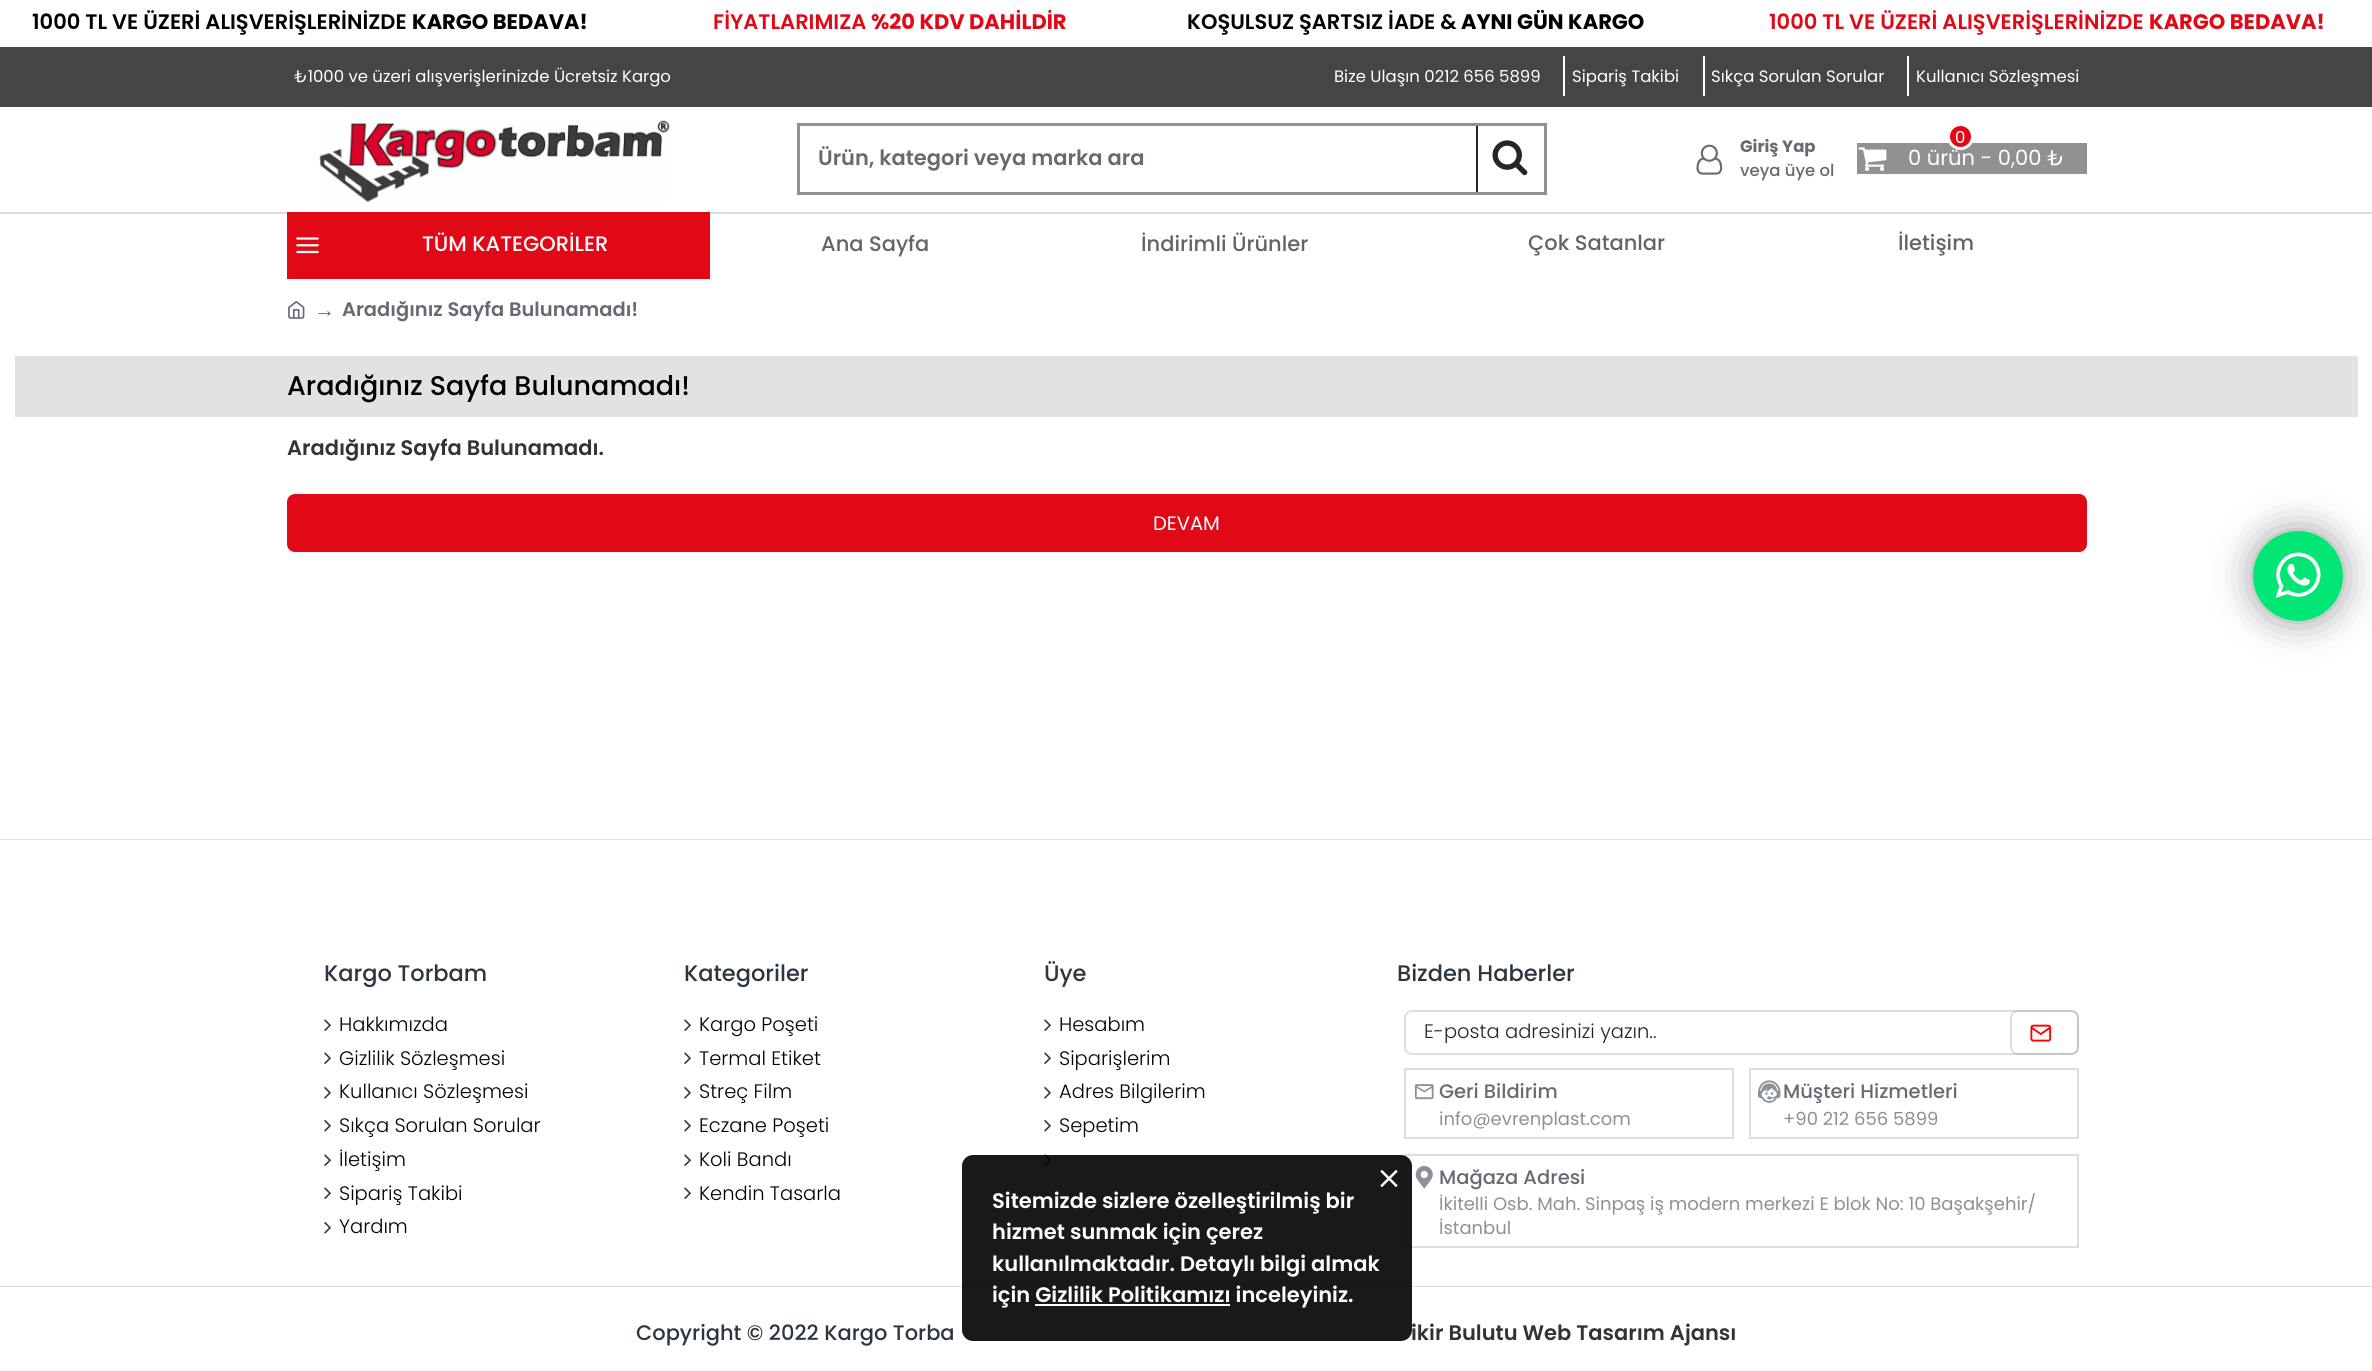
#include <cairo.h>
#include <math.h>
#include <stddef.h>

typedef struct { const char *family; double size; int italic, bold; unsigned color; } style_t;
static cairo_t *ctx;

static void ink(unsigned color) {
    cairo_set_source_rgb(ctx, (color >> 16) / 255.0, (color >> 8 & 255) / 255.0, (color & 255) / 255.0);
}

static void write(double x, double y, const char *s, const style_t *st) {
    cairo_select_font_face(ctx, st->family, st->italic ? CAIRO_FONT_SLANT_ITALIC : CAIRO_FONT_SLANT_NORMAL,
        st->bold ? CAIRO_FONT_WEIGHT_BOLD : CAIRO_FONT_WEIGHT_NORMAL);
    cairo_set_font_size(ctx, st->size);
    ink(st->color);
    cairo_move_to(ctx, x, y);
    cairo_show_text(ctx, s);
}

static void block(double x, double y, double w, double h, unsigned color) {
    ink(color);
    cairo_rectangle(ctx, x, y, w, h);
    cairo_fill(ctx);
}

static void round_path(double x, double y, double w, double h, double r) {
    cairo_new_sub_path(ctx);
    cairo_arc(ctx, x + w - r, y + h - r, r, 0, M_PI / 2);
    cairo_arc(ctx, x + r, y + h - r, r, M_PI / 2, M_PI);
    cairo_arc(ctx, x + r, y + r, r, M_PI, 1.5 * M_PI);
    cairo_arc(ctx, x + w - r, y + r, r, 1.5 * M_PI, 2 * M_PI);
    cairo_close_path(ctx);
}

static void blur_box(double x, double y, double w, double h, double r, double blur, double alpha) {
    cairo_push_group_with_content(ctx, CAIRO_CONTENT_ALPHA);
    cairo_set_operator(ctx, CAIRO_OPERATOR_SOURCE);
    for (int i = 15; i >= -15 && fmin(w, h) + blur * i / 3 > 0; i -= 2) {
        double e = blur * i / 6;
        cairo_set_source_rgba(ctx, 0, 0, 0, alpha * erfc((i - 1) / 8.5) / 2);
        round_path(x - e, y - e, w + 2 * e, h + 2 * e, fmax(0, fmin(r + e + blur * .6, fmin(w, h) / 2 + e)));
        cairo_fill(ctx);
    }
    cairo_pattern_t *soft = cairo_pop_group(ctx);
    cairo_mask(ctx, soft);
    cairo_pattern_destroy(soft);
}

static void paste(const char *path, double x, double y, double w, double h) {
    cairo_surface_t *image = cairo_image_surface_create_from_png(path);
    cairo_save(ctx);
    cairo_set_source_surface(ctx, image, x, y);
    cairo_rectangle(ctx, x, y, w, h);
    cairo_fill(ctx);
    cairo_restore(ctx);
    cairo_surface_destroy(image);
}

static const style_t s1 = {"Poppins SemiBold", 21, 0, 0, 0x000000};
static const style_t s2 = {"Poppins", 21, 0, 1, 0x000000};
static const style_t s3 = {"Poppins SemiBold", 21, 0, 0, 0xe10917};
static const style_t s4 = {"Poppins", 21, 0, 1, 0xe10917};
static const style_t s5 = {"Poppins", 16.5, 0, 0, 0xffffff};
static const style_t s6 = {"Poppins SemiBold", 21, 0, 0, 0x696973};
static const style_t s7 = {"Poppins", 16.5, 0, 1, 0x696973};
static const style_t s8 = {"Poppins Medium", 16.5, 0, 0, 0x696973};
static const style_t s9 = {"Poppins", 21, 0, 0, 0xffffff};
static const style_t s10 = {"Poppins Medium", 21, 0, 0, 0xffffff};
static const style_t s11 = {"Poppins Medium", 21, 0, 0, 0x646464};
static const style_t s12 = {"Liberation Serif", 21, 0, 0, 0x696973};
static const style_t s13 = {"Poppins SemiBold", 19.5, 0, 0, 0x696973};
static const style_t s14 = {"Poppins Medium", 27, 0, 0, 0x000000};
static const style_t s15 = {"Poppins SemiBold", 21, 0, 0, 0x333333};
static const style_t s16 = {"Poppins", 19.5, 0, 0, 0xffffff};
static const style_t s17 = {"Poppins Medium", 22.5, 0, 0, 0x2c3640};
static const style_t s18 = {"Poppins Light", 19.5, 0, 0, 0x000000};
static const style_t s19 = {"Poppins Light", 19.5, 0, 0, 0x212529};
static const style_t s20 = {"Poppins Medium", 19.5, 0, 0, 0x696973};
static const style_t s21 = {"Poppins", 18, 0, 0, 0x8b9198};
static const style_t s22 = {"Poppins Medium", 21, 0, 0, 0x2c3640};
static const style_t s23 = {"Poppins SemiBold", 21, 0, 0, 0xffffff};

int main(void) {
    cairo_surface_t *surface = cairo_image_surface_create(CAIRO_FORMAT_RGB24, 2372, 1371);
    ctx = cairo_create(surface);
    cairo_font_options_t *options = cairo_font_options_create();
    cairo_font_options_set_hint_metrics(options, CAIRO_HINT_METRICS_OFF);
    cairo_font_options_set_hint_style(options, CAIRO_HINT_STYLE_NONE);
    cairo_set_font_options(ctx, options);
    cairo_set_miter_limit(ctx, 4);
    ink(0xffffff);
    cairo_paint(ctx);
    write(32, 29, "1000 TL VE ÜZERİ ALIŞVERİŞLERİNİZDE", &s1);
    write(412, 29, "KARGO BEDAVA!", &s2);
    write(713, 29, "FİYATLARIMIZA", &s3);
    write(871, 29, "%20 KDV DAHİLDİR", &s4);
    write(1187, 29, "KOŞULSUZ ŞARTSIZ İADE &", &s1);
    write(1461, 29, "AYNI GÜN KARGO", &s2);
    write(1769, 29, "1000 TL VE ÜZERİ ALIŞVERİŞLERİNİZDE", &s3);
    write(2149, 29, "KARGO BEDAVA!", &s4);
    block(0, 47, 2372, 60, 0x454545);
    write(294, 82, "₺1000 ve üzeri alışverişlerinizde Ücretsiz Kargo", &s5);
    write(1334, 82, "Bize Ulaşın 0212 656 5899", &s5);
    block(1563, 56, 2, 40, 0xffffff);
    write(1572, 82, "Sipariş Takibi", &s5);
    block(1703, 56, 2, 40, 0xffffff);
    write(1711, 82, "Sıkça Sorulan Sorular", &s5);
    block(1907, 56, 2, 40, 0xffffff);
    write(1916, 82, "Kullanıcı Sözleşmesi", &s5);
    paste("pic1.png", 319, 120, 351, 83);
    cairo_rectangle(ctx, 798.5, 124.5, 747, 69);
    ink(0x919191);
    cairo_set_line_width(ctx, 3);
    cairo_stroke(ctx);
    write(818, 165, "Ürün, kategori veya marka ara", &s6);
    block(1476, 126, 2, 66, 0x292727);
    paste("pic2.png", 1492, 140, 36, 36);
    paste("pic3.png", 1696, 144, 27, 31);
    write(1740, 152, "Giriş Yap", &s7);
    write(1740, 176, "veya üye ol", &s8);
    block(1857, 143, 230, 31, 0x919191);
    write(1908, 165, "0 ürün - 0,00 ₺", &s9);
    ink(0xe20917);
    cairo_new_path(ctx);
    cairo_arc(ctx, 1960.5, 136.5, 12, 0, 2 * M_PI);
    cairo_fill_preserve(ctx);
    ink(0xffffff);
    cairo_stroke(ctx);
    write(1955, 143, "0", &s5);
    paste("pic4.png", 1858, 147, 29, 24);
    block(0, 212, 2372, 2, 0xdddddd);
    block(287, 212, 423, 67, 0xe20917);
    paste("pic5.png", 296, 237, 23, 17);
    write(422, 251, "TÜM KATEGORİLER", &s10);
    write(821, 251, "Ana Sayfa", &s11);
    write(1141, 251, "İndirimli Ürünler", &s11);
    write(1528, 250, "Çok Satanlar", &s11);
    write(1898, 250, "İletişim", &s11);
    paste("pic6.png", 288, 301, 17, 18);
    write(314, 317, "→", &s12);
    write(342, 316, "Aradığınız Sayfa Bulunamadı!", &s13);
    block(15, 356, 2343, 61, 0xe2e2e2);
    write(287, 395, "Aradığınız Sayfa Bulunamadı!", &s14);
    write(287, 455, "Aradığınız Sayfa Bulunamadı.", &s15);
    ink(0xe20917);
    round_path(287, 494, 1800, 58, 8);
    cairo_fill(ctx);
    write(1153, 530, "DEVAM", &s16);
    block(0, 839, 2372, 1, 0xdcdee0);
    block(0, 1286, 2372, 1, 0xdcdee0);
    write(324, 981, "Kargo Torbam", &s17);
    paste("pic7.png", 324, 1019, 7, 13);
    write(339, 1031, "Hakkımızda", &s18);
    paste("pic7.png", 324, 1052, 7, 13);
    write(339, 1065, "Gizlilik Sözleşmesi", &s18);
    paste("pic8.png", 324, 1087, 7, 12);
    write(339, 1098, "Kullanıcı Sözleşmesi", &s18);
    paste("pic8.png", 324, 1120, 7, 12);
    write(339, 1132, "Sıkça Sorulan Sorular", &s18);
    paste("pic7.png", 324, 1154, 7, 13);
    write(339, 1166, "İletişim", &s18);
    paste("pic7.png", 324, 1187, 7, 13);
    write(339, 1200, "Sipariş Takibi", &s18);
    paste("pic8.png", 324, 1222, 7, 12);
    write(339, 1233, "Yardım", &s18);
    write(684, 981, "Kategoriler", &s17);
    paste("pic7.png", 684, 1019, 7, 13);
    write(699, 1031, "Kargo Poşeti", &s18);
    paste("pic7.png", 684, 1052, 7, 13);
    write(699, 1065, "Termal Etiket", &s18);
    paste("pic8.png", 684, 1087, 7, 12);
    write(699, 1098, "Streç Film", &s18);
    paste("pic8.png", 684, 1120, 7, 12);
    write(699, 1132, "Eczane Poşeti", &s18);
    paste("pic7.png", 684, 1154, 7, 13);
    write(699, 1166, "Koli Bandı", &s18);
    paste("pic7.png", 684, 1187, 7, 13);
    write(699, 1200, "Kendin Tasarla", &s18);
    write(1044, 981, "Üye", &s17);
    paste("pic7.png", 1044, 1019, 7, 13);
    write(1059, 1031, "Hesabım", &s18);
    paste("pic7.png", 1044, 1052, 7, 13);
    write(1059, 1065, "Siparişlerim", &s18);
    paste("pic8.png", 1044, 1087, 7, 12);
    write(1059, 1098, "Adres Bilgilerim", &s18);
    paste("pic8.png", 1044, 1120, 7, 12);
    write(1059, 1132, "Sepetim", &s18);
    paste("pic7.png", 1044, 1154, 7, 13);
    write(1397, 981, "Bizden Haberler", &s17);
    round_path(1405, 1011, 673, 43, 7);
    ink(0xdcdee0);
    cairo_set_line_width(ctx, 2);
    cairo_stroke(ctx);
    write(1424, 1038, "E-posta adresinizi yazın..", &s19);
    round_path(2011, 1011, 67, 43, 7);
    cairo_set_source_rgba(ctx, 0.545, 0.569, 0.596, 0.3);
    cairo_stroke(ctx);
    paste("pic9.png", 2030, 1024, 22, 18);
    cairo_rectangle(ctx, 1405, 1069, 328, 69);
    ink(0xdcdee0);
    cairo_stroke(ctx);
    paste("pic10.png", 1414, 1084, 20, 16);
    write(1439, 1098, "Geri Bildirim", &s20);
    write(1439, 1125, "info@evrenplast.com", &s21);
    cairo_rectangle(ctx, 1750, 1069, 328, 69);
    ink(0xdcdee0);
    cairo_stroke(ctx);
    paste("pic11.png", 1758, 1080, 23, 23);
    write(1783, 1098, "Müşteri Hizmetleri", &s20);
    write(1783, 1125, "+90 212 656 5899", &s21);
    cairo_rectangle(ctx, 1405, 1155, 673, 92);
    ink(0xdcdee0);
    cairo_stroke(ctx);
    paste("pic12.png", 1415, 1165, 18, 24);
    write(1439, 1184, "Mağaza Adresi", &s20);
    write(1439, 1210, "İkitelli Osb. Mah. Sinpaş iş modern merkezi E blok No: 10 Başakşehir/", &s21);
    write(1439, 1234, "İstanbul", &s21);
    write(636, 1340, "Copyright © 2022 Kargo Torba", &s22);
    write(1411, 1340, "ikir Bulutu Web Tasarım Ajansı", &s15);
    ink(0x000000);
    blur_box(2253, 531, 90, 90, 45, 19, 0.4);
    ink(0x01e675);
    cairo_arc(ctx, 2298, 576, 45, 0, 2 * M_PI);
    cairo_fill(ctx);
    paste("pic13.png", 2275, 552, 46, 46);
    cairo_set_source_rgba(ctx, 0, 0, 0, 0.9);
    round_path(962, 1155, 450, 186, 11);
    cairo_fill(ctx);
    paste("pic14.png", 1380, 1169, 18, 19);
    write(992, 1208, "Sitemizde sizlere özelleştirilmiş bir", &s23);
    write(992, 1239, "hizmet sunmak için çerez", &s23);
    write(992, 1271, "kullanılmaktadır. Detaylı bilgi almak", &s23);
    write(992, 1302, "için Gizlilik Politikamızı inceleyiniz.", &s23);
    block(1035, 1304, 195, 2, 0xffffff);
    cairo_surface_write_to_png(surface, "screenshot.png");
    cairo_font_options_destroy(options);
    cairo_destroy(ctx);
    cairo_surface_destroy(surface);
    return 0;
}
